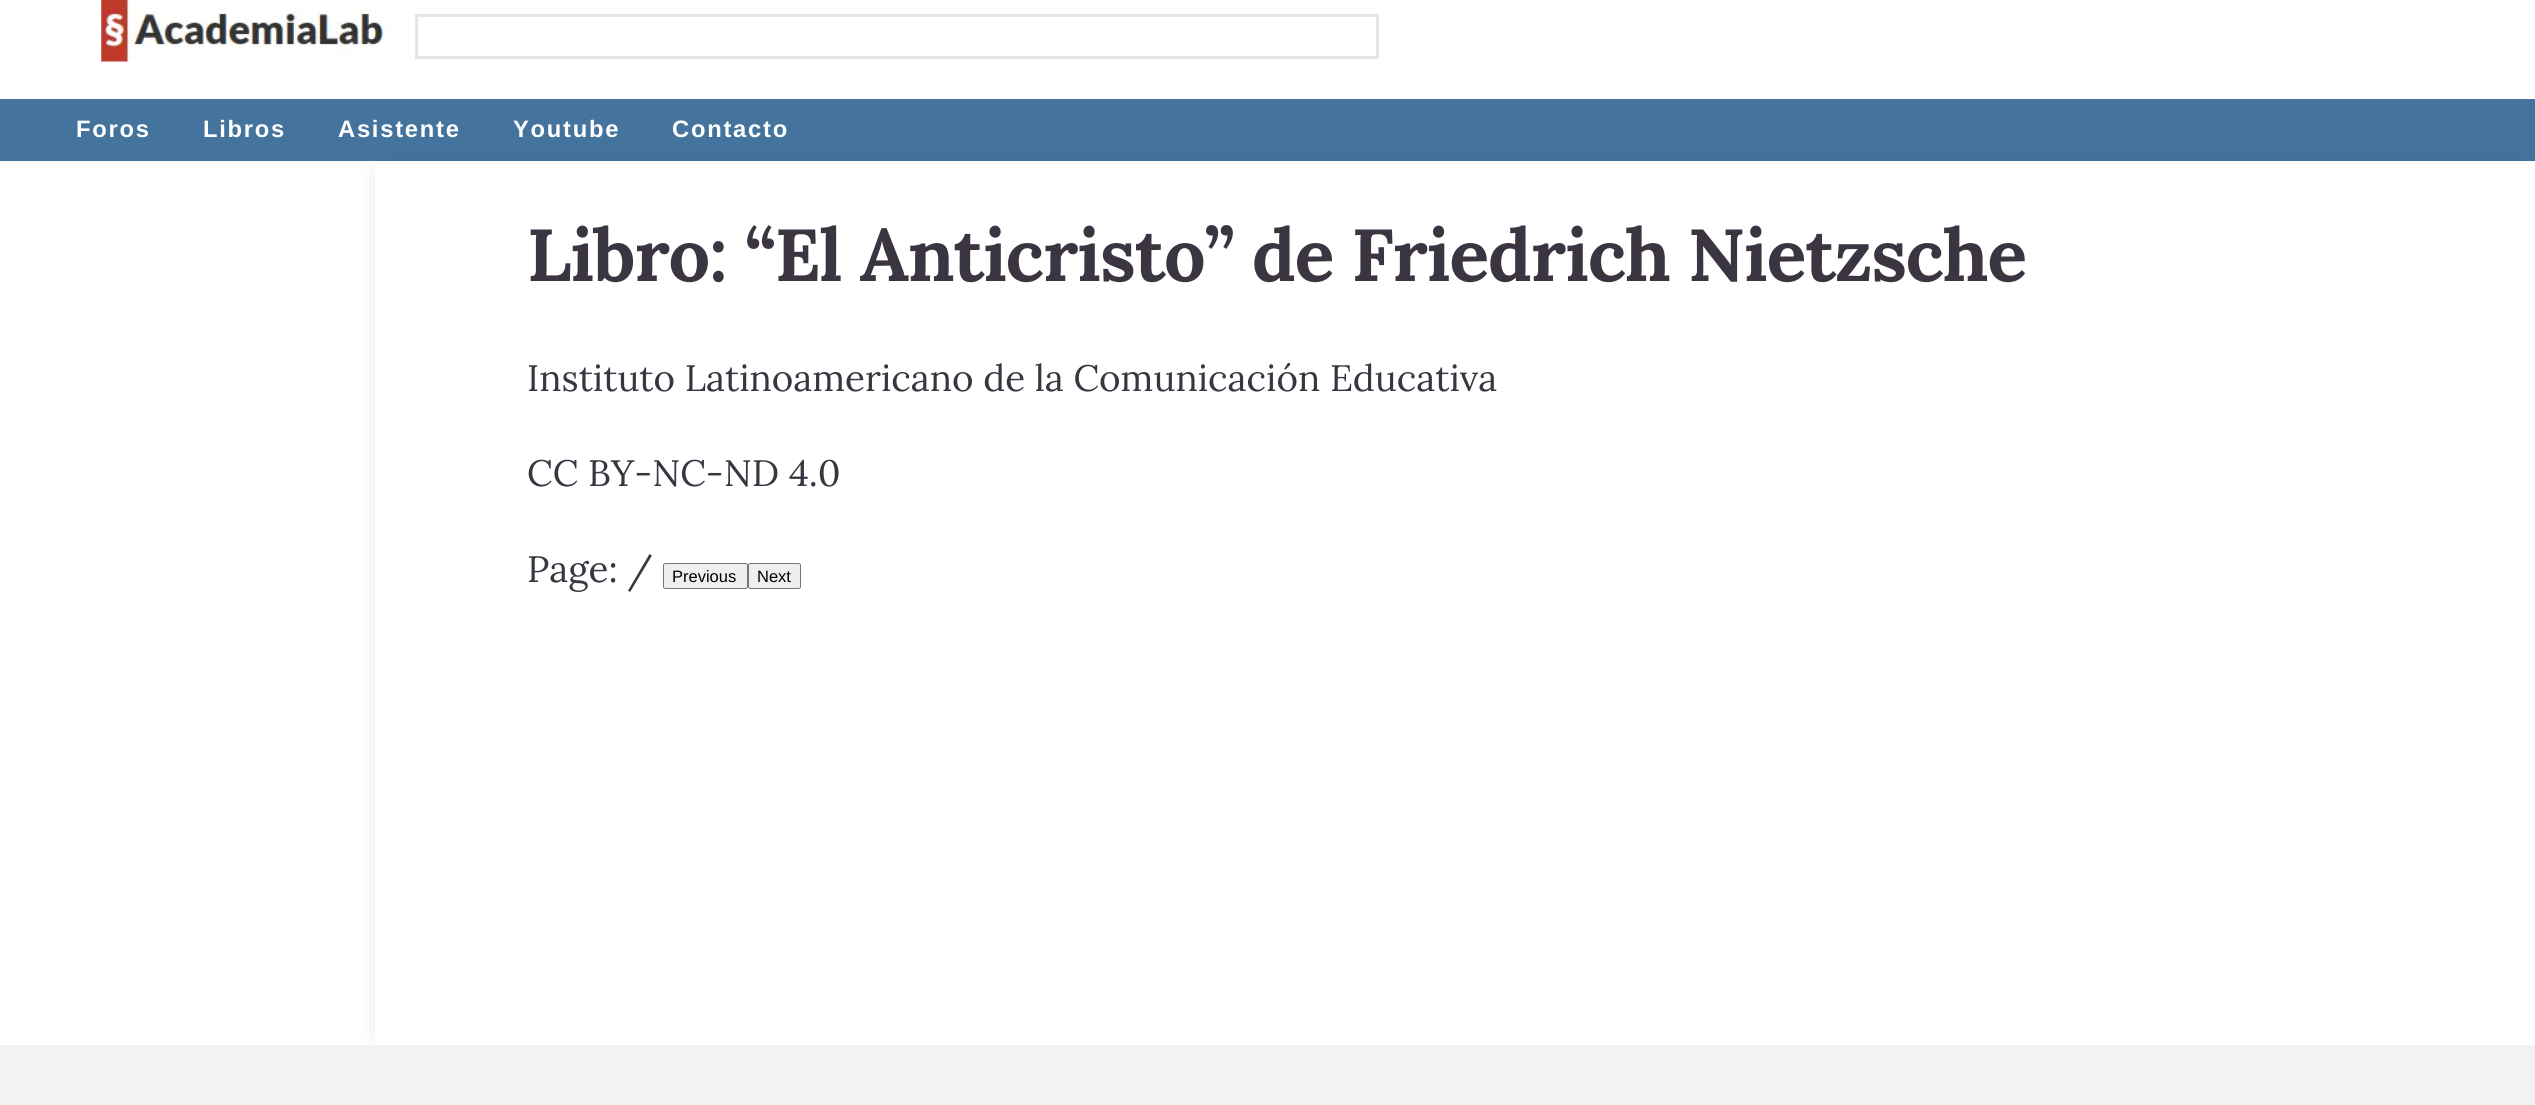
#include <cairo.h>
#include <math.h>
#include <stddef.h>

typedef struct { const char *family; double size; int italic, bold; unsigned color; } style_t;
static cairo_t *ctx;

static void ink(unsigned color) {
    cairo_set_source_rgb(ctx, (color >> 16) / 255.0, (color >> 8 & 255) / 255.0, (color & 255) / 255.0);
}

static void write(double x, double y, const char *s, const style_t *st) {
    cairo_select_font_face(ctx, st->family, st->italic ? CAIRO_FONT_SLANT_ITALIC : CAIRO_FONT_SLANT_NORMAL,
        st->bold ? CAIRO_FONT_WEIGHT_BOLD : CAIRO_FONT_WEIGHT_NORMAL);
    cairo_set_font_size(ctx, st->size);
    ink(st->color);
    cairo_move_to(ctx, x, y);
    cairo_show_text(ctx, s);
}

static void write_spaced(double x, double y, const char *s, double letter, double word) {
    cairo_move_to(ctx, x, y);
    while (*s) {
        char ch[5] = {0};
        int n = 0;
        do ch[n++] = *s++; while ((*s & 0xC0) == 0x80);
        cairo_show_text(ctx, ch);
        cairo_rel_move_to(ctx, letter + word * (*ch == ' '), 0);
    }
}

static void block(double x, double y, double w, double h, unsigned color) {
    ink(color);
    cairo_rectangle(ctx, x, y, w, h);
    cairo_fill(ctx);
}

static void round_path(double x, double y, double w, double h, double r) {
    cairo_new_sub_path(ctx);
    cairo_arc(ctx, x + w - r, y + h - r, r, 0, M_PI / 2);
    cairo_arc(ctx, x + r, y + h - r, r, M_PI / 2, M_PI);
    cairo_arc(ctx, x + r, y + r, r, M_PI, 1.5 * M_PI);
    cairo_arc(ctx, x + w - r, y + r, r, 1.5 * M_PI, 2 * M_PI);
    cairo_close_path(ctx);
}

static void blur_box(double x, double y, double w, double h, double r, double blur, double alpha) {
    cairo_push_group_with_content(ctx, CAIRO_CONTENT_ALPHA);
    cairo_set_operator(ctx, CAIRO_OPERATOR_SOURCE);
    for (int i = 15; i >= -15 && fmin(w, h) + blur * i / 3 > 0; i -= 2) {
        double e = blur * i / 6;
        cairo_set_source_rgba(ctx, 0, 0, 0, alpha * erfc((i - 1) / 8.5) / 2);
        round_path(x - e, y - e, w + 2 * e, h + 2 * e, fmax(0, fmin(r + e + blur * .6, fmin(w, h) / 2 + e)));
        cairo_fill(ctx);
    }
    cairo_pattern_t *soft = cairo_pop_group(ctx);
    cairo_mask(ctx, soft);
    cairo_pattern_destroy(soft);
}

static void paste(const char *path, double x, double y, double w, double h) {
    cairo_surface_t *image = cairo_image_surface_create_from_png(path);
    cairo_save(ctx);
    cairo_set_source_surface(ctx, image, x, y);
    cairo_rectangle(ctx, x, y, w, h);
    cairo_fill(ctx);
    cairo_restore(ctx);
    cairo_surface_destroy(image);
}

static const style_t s1 = {"Lora", 36.75, 0, 0, 0x3b3541};
static const style_t s2 = {"Liberation Sans", 16.5, 0, 0, 0x000000};

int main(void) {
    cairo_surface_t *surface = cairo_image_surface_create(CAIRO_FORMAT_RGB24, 2535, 1105);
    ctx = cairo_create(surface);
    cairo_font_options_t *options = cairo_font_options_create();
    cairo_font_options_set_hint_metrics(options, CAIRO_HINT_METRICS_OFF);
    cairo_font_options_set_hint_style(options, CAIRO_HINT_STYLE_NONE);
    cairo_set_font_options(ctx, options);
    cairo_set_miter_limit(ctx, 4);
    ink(0xffffff);
    cairo_paint(ctx);
    paste("pic1.png", 101, 0, 289, 62);
    cairo_rectangle(ctx, 416.5, 15.5, 961, 42);
    ink(0xe6e6e6);
    cairo_set_line_width(ctx, 3);
    cairo_stroke(ctx);
    block(0, 99, 2535, 62, 0x44749d);
    cairo_select_font_face(ctx, "Liberation Sans", CAIRO_FONT_SLANT_NORMAL, CAIRO_FONT_WEIGHT_BOLD);
    cairo_set_font_size(ctx, 23.75);
    ink(0xffffff);
    write_spaced(76, 137, "Foros", 1.75, 0);
    write_spaced(203, 137, "Libros", 1.75, 0);
    write_spaced(338, 137, "Asistente", 1.75, 0);
    write_spaced(513, 137, "Youtube", 1.75, 0);
    write_spaced(672, 137, "Contacto", 1.75, 0);
    cairo_save(ctx);
    cairo_set_fill_rule(ctx, CAIRO_FILL_RULE_EVEN_ODD);
    cairo_new_path(ctx);
    cairo_move_to(ctx, 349, 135);
    cairo_line_to(ctx, 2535, 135);
    cairo_line_to(ctx, 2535, 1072);
    cairo_line_to(ctx, 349, 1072);
    cairo_close_path(ctx);
    cairo_move_to(ctx, 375, 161);
    cairo_line_to(ctx, 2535, 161);
    cairo_line_to(ctx, 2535, 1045);
    cairo_line_to(ctx, 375, 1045);
    cairo_close_path(ctx);
    cairo_clip(ctx);
    ink(0x000000);
    blur_box(388, 174, 2135, 859, 0, 12.5, 0.31);
    cairo_restore(ctx);
    cairo_select_font_face(ctx, "Lora", CAIRO_FONT_SLANT_NORMAL, CAIRO_FONT_WEIGHT_BOLD);
    cairo_set_font_size(ctx, 73.6);
    ink(0x3b3541);
    write_spaced(527, 281, "Libro: “El Anticristo” de Friedrich Nietzsche", -1.1, 0);
    write(527, 391, "Instituto Latinoamericano de la Comunicación Educativa", &s1);
    write(527, 486, "CC BY-NC-ND 4.0", &s1);
    write(527, 582, "Page: /", &s1);
    ink(0xefefef);
    round_path(663.5, 563.5, 84, 25, 2);
    cairo_fill_preserve(ctx);
    ink(0x767676);
    cairo_set_line_width(ctx, 1);
    cairo_stroke(ctx);
    write(672, 582, "Previous", &s2);
    ink(0xefefef);
    round_path(748.5, 563.5, 52, 25, 2);
    cairo_fill_preserve(ctx);
    ink(0x767676);
    cairo_stroke(ctx);
    write(757, 582, "Next", &s2);
    block(0, 1045, 2535, 60, 0xf2f2f2);
    cairo_surface_write_to_png(surface, "screenshot.png");
    cairo_font_options_destroy(options);
    cairo_destroy(ctx);
    cairo_surface_destroy(surface);
    return 0;
}
